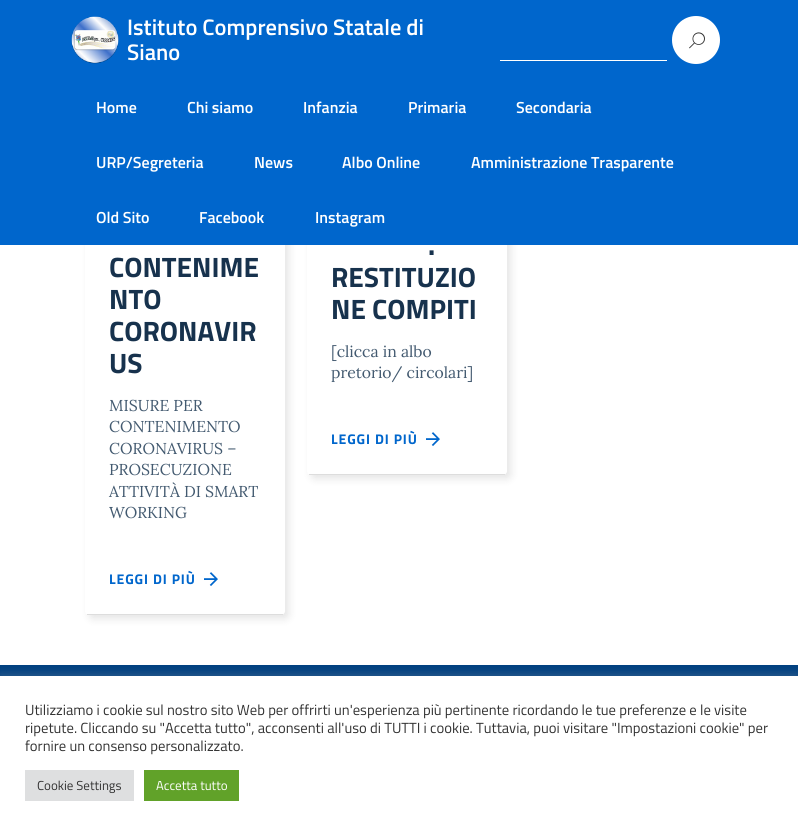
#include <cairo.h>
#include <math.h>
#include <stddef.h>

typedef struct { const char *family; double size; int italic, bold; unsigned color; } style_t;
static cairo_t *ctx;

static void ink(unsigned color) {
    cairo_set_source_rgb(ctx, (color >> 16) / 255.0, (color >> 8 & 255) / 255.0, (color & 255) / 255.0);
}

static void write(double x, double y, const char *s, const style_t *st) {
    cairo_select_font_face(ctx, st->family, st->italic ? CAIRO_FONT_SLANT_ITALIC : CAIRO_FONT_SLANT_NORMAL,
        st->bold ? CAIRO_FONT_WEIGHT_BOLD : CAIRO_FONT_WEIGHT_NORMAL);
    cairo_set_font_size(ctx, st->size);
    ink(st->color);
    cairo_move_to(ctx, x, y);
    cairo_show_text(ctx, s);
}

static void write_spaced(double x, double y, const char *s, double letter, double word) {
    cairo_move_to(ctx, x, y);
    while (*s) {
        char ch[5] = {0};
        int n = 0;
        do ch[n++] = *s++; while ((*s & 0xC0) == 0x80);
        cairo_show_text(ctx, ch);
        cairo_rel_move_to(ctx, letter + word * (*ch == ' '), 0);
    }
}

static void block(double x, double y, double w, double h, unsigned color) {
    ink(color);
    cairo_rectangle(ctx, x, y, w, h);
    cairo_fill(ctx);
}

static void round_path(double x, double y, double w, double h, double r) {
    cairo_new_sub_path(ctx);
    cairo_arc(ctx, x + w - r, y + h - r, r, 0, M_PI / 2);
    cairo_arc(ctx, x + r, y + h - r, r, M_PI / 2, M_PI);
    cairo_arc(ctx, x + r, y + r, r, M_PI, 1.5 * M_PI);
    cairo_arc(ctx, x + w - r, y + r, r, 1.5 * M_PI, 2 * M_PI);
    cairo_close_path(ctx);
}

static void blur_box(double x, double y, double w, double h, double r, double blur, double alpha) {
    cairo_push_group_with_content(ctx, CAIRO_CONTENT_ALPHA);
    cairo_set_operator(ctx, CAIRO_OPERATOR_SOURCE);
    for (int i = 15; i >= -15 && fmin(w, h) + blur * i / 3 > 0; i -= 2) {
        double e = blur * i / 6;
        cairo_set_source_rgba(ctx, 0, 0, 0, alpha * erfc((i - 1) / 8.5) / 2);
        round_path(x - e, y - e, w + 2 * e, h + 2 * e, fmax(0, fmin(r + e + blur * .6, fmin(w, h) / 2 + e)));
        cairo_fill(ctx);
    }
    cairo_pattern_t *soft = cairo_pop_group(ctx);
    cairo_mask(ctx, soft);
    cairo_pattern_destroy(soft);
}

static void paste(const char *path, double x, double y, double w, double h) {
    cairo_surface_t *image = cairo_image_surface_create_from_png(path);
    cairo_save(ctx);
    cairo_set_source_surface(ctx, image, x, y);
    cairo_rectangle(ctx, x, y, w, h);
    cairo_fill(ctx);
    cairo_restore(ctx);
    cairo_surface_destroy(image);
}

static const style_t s1 = {"Titillium Web SemiBold", 22.5, 0, 0, 0xffffff};
static const style_t s2 = {"Titillium Web SemiBold", 16, 0, 0, 0xffffff};
static const style_t s3 = {"Titillium Web", 28, 0, 1, 0x17324d};
static const style_t s4 = {"Lora", 15.75, 0, 0, 0x435a70};
static const style_t s5 = {"Titillium Web", 14.67, 0, 0, 0x333333};
static const style_t s6 = {"Titillium Web", 13, 0, 0, 0x333333};
static const style_t s7 = {"Titillium Web", 13, 0, 0, 0xffffff};

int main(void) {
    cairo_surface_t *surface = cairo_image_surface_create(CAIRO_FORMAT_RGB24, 798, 831);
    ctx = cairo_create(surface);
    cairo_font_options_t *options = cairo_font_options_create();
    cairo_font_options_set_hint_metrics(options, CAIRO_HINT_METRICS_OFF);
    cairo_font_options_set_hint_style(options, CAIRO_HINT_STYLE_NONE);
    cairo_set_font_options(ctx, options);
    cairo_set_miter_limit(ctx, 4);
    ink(0xffffff);
    cairo_paint(ctx);
    ink(0x000000);
    blur_box(89, 107, 200, 512, 4, 4, 0.1);
    ink(0xffffff);
    round_path(85, 103, 200, 512, 4);
    cairo_fill(ctx);
    ink(0x000000);
    blur_box(311, 107, 200, 372, 4, 4, 0.1);
    ink(0xffffff);
    round_path(307, 103, 200, 372, 4);
    cairo_fill(ctx);
    block(0, 0, 798, 245, 0x0066cc);
    paste("pic1.png", 71, 16, 48, 48);
    write(127, 35, "Istituto Comprensivo Statale di", &s1);
    write(127, 60, "Siano", &s1);
    block(500, 60, 167, 1, 0xffffff);
    cairo_new_path(ctx);
    cairo_arc(ctx, 696, 40, 24, 0, 2 * M_PI);
    cairo_fill(ctx);
    paste("pic2.png", 689, 32, 16, 17);
    write(96, 113, "Home", &s2);
    write(187, 113, "Chi siamo", &s2);
    write(303, 113, "Infanzia", &s2);
    write(408, 113, "Primaria", &s2);
    write(516, 113, "Secondaria", &s2);
    write(96, 168, "URP/Segreteria", &s2);
    write(254, 168, "News", &s2);
    write(342, 168, "Albo Online", &s2);
    write(471, 168, "Amministrazione Trasparente", &s2);
    write(96, 223, "Old Sito", &s2);
    write(199, 223, "Facebook", &s2);
    write(315, 223, "Instagram", &s2);
    block(87, 614, 196, 1, 0xdddddd);
    write(109, 277, "CONTENIME", &s3);
    write(109, 309, "NTO", &s3);
    write(109, 341, "CORONAVIR", &s3);
    write(109, 373, "US", &s3);
    write(109, 411, "MISURE PER", &s4);
    write(109, 432, "CONTENIMENTO", &s4);
    write(109, 454, "CORONAVIRUS –", &s4);
    write(109, 475, "PROSECUZIONE", &s4);
    write(109, 497, "ATTIVITÀ DI SMART", &s4);
    write(109, 518, "WORKING", &s4);
    cairo_select_font_face(ctx, "Titillium Web", CAIRO_FONT_SLANT_NORMAL, CAIRO_FONT_WEIGHT_BOLD);
    cairo_set_font_size(ctx, 14);
    ink(0x0066cc);
    write_spaced(109, 584, "LEGGI DI PIÙ", 0.9, 0);
    paste("pic3.png", 204, 572, 14, 14);
    block(309, 474, 196, 1, 0xdddddd);
    write(428, 255, ".", &s3);
    write(331, 287, "RESTITUZIO", &s3);
    write(331, 319, "NE COMPITI", &s3);
    write(331, 357, "[clicca in albo", &s4);
    write(331, 378, "pretorio/ circolari]", &s4);
    cairo_select_font_face(ctx, "Titillium Web", CAIRO_FONT_SLANT_NORMAL, CAIRO_FONT_WEIGHT_BOLD);
    cairo_set_font_size(ctx, 14);
    ink(0x0066cc);
    write_spaced(331, 444, "LEGGI DI PIÙ", 0.9, 0);
    paste("pic3.png", 426, 432, 14, 14);
    block(0, 665, 798, 11, 0x004080);
    ink(0xacabab);
    blur_box(0, 675, 798, 155, 0, 5, 0.3);
    block(0, 676, 798, 155, 0xffffff);
    write(25, 715, "Utilizziamo i cookie sul nostro sito Web per offrirti un'esperienza più pertinente ricordando le tue preferenze e le visite", &s5);
    write(25, 733, "ripetute. Cliccando su \"Accetta tutto\", acconsenti all'uso di TUTTI i cookie. Tuttavia, puoi visitare \"Impostazioni cookie\" per", &s5);
    write(25, 751, "fornire un consenso personalizzato.", &s5);
    block(25, 770, 109, 31, 0xdedfe0);
    write(37, 790, "Cookie Settings", &s6);
    block(144, 770, 95, 31, 0x61a229);
    write(156, 790, "Accetta tutto", &s7);
    cairo_surface_write_to_png(surface, "screenshot.png");
    cairo_font_options_destroy(options);
    cairo_destroy(ctx);
    cairo_surface_destroy(surface);
    return 0;
}
